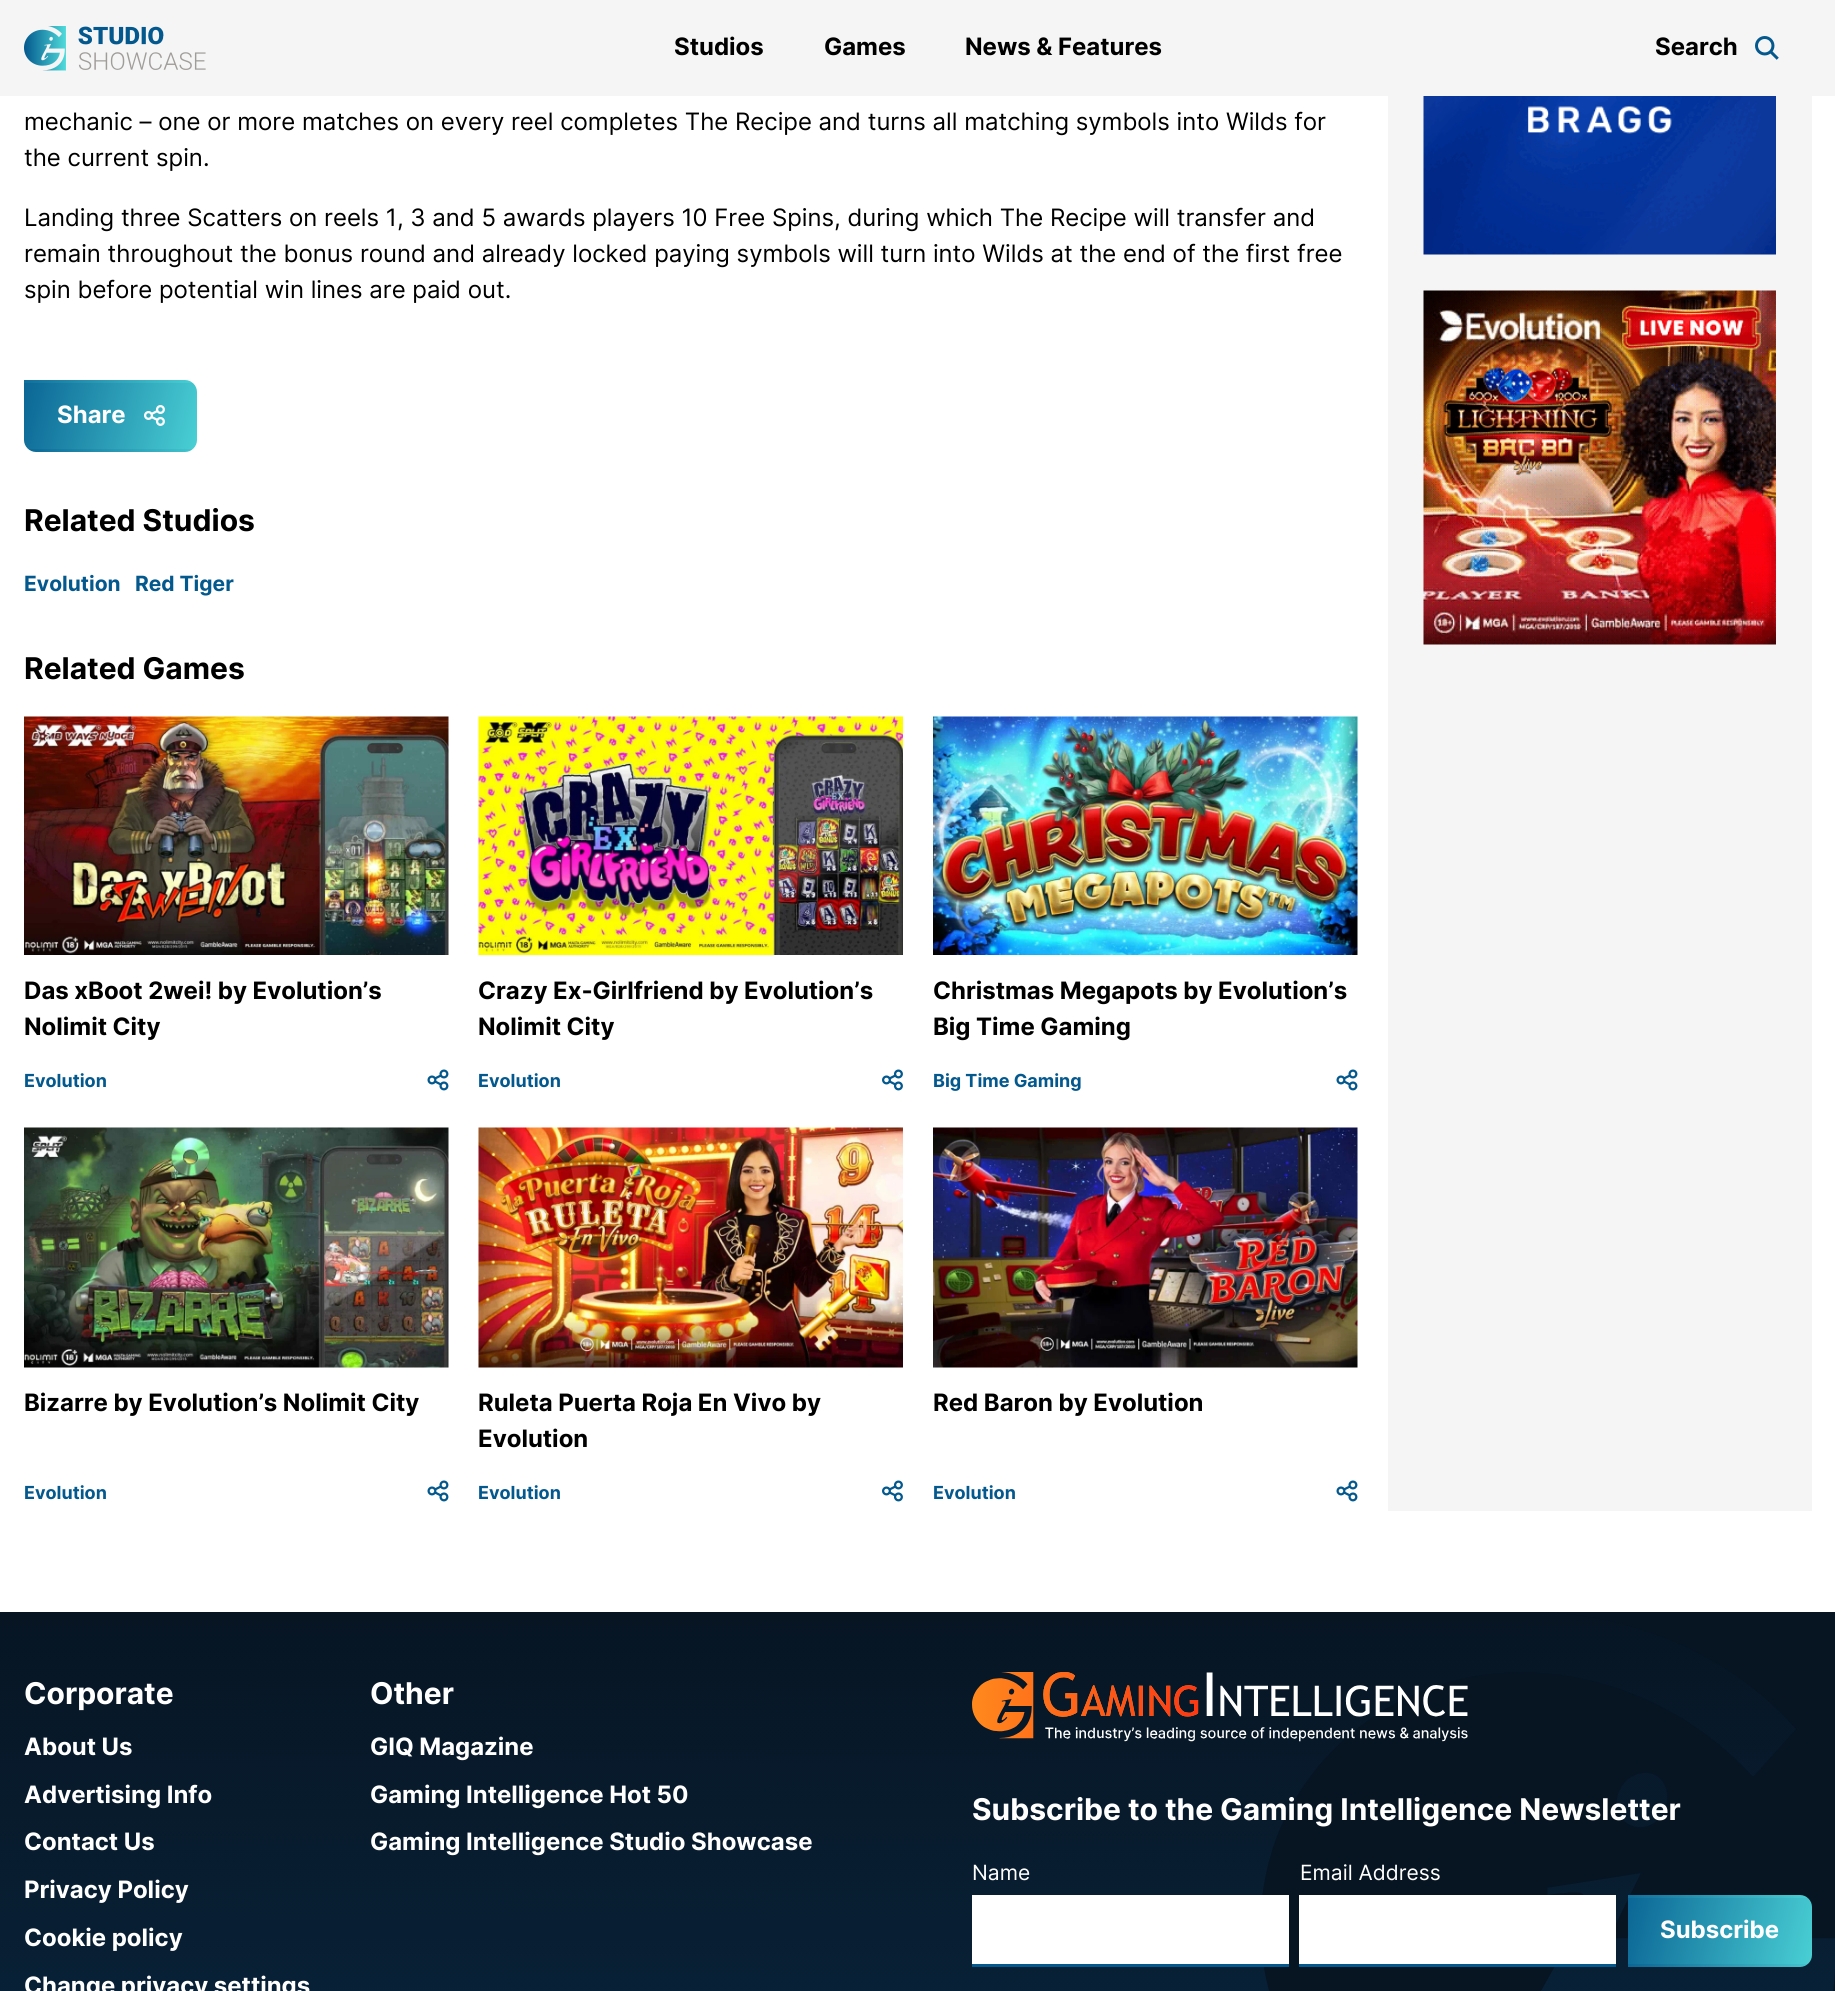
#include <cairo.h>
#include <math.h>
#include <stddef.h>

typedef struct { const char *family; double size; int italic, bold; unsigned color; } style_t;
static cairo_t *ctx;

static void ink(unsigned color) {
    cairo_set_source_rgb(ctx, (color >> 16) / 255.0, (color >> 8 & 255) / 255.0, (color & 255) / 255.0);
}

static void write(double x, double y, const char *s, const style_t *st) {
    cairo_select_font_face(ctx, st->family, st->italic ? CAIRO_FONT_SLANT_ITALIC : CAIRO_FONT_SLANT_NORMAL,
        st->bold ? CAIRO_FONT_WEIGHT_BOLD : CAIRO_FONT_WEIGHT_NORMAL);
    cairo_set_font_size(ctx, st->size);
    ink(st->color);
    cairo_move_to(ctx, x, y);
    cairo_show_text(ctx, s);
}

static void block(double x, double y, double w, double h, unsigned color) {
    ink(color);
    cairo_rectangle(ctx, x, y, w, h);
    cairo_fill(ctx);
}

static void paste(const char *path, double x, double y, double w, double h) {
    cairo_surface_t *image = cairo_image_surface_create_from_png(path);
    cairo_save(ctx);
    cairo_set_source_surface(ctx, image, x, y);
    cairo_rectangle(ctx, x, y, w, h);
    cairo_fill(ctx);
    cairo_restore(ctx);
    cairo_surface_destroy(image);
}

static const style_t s1 = {"Inter", 23.95, 1, 1, 0x000000};
static const style_t s2 = {"Inter", 23.95, 1, 0, 0x000000};
static const style_t s3 = {"Inter", 23.95, 1, 1, 0xffffff};
static const style_t s4 = {"Inter", 29.95, 1, 1, 0x000000};
static const style_t s5 = {"Inter", 21, 1, 1, 0x03588d};
static const style_t s6 = {"Inter", 18, 1, 1, 0x03588d};
static const style_t s7 = {"Inter", 29.95, 1, 1, 0xffffff};
static const style_t s8 = {"Inter", 21, 1, 0, 0xffffff};

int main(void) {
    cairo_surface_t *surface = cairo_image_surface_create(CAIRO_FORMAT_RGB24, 1835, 1991);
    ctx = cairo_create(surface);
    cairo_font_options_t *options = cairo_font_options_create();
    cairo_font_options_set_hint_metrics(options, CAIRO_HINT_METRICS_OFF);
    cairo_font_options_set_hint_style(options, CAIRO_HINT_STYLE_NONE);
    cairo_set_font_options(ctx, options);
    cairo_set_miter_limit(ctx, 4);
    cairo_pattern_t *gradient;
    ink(0xffffff);
    cairo_paint(ctx);
    block(0, 0, 1835, 96, 0xf5f5f5);
    paste("pic1.png", 24, 26, 182, 45);
    write(674, 55, "Studios", &s1);
    write(824, 55, "Games", &s1);
    write(965, 55, "News & Features", &s1);
    write(1655, 55, "Search", &s1);
    paste("pic2.png", 1755, 36, 24, 24);
    write(24, 130, "mechanic – one or more matches on every reel completes The Recipe and turns all matching symbols into Wilds for", &s2);
    write(24, 166, "the current spin.", &s2);
    write(24, 226, "Landing three Scatters on reels 1, 3 and 5 awards players 10 Free Spins, during which The Recipe will transfer and", &s2);
    write(24, 262, "remain throughout the bonus round and already locked paying symbols will turn into Wilds at the end of the first free", &s2);
    write(24, 298, "spin before potential win lines are paid out.", &s2);
    cairo_save(ctx);
    cairo_new_path(ctx);
    cairo_move_to(ctx, 24, 380);
    cairo_line_to(ctx, 185, 380);
    cairo_curve_to(ctx, 191.5, 380, 197, 385.5, 197, 392);
    cairo_line_to(ctx, 197, 440);
    cairo_curve_to(ctx, 197, 446.5, 191.5, 452, 185, 452);
    cairo_line_to(ctx, 36, 452);
    cairo_curve_to(ctx, 29.5, 452, 24, 446.5, 24, 440);
    cairo_close_path(ctx);
    cairo_clip(ctx);
    gradient = cairo_pattern_create_linear(-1.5, 320, 218, 379);
    cairo_pattern_add_color_stop_rgba(gradient, 0, 0.012, 0.345, 0.553, 1);
    cairo_pattern_add_color_stop_rgba(gradient, 1, 0.314, 0.859, 0.859, 1);
    cairo_set_source(ctx, gradient);
    cairo_pattern_destroy(gradient);
    cairo_rectangle(ctx, 24, 380, 173, 3);
    cairo_fill(ctx);
    gradient = cairo_pattern_create_linear(-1.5, 386, 218, 445);
    cairo_pattern_add_color_stop_rgba(gradient, 0, 0.012, 0.345, 0.553, 1);
    cairo_pattern_add_color_stop_rgba(gradient, 1, 0.314, 0.859, 0.859, 1);
    cairo_set_source(ctx, gradient);
    cairo_pattern_destroy(gradient);
    cairo_rectangle(ctx, 24, 383, 173, 66);
    cairo_fill(ctx);
    gradient = cairo_pattern_create_linear(-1.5, 452, 218, 511);
    cairo_pattern_add_color_stop_rgba(gradient, 0, 0.012, 0.345, 0.553, 1);
    cairo_pattern_add_color_stop_rgba(gradient, 1, 0.314, 0.859, 0.859, 1);
    cairo_set_source(ctx, gradient);
    cairo_pattern_destroy(gradient);
    cairo_rectangle(ctx, 24, 449, 173, 3);
    cairo_fill(ctx);
    cairo_restore(ctx);
    write(57, 423, "Share", &s3);
    paste("pic3.png", 144, 405, 21, 21);
    write(24, 531, "Related Studios", &s4);
    write(24, 591, "Evolution", &s5);
    write(135, 591, "Red Tiger", &s5);
    write(24, 679, "Related Games", &s4);
    paste("pic4.png", 24, 716, 425, 239);
    write(24, 999, "Das xBoot 2wei! by Evolution’s", &s1);
    write(24, 1035, "Nolimit City", &s1);
    write(24, 1087, "Evolution", &s6);
    paste("pic5.png", 427, 1069, 22, 22);
    paste("pic6.png", 478, 716, 425, 239);
    write(478, 999, "Crazy Ex-Girlfriend by Evolution’s", &s1);
    write(478, 1035, "Nolimit City", &s1);
    write(478, 1087, "Evolution", &s6);
    paste("pic7.png", 882, 1069, 21, 22);
    paste("pic8.png", 933, 716, 425, 239);
    write(933, 999, "Christmas Megapots by Evolution’s", &s1);
    write(933, 1035, "Big Time Gaming", &s1);
    write(933, 1087, "Big Time Gaming", &s6);
    paste("pic5.png", 1336, 1069, 22, 22);
    paste("pic9.png", 24, 1127, 425, 241);
    write(24, 1411, "Bizarre by Evolution’s Nolimit City", &s1);
    write(24, 1499, "Evolution", &s6);
    paste("pic5.png", 427, 1480, 22, 22);
    paste("pic10.png", 478, 1127, 425, 241);
    write(478, 1411, "Ruleta Puerta Roja En Vivo by", &s1);
    write(478, 1447, "Evolution", &s1);
    write(478, 1499, "Evolution", &s6);
    paste("pic7.png", 882, 1480, 21, 22);
    paste("pic11.png", 933, 1127, 425, 241);
    write(933, 1411, "Red Baron by Evolution", &s1);
    write(933, 1499, "Evolution", &s6);
    paste("pic5.png", 1336, 1480, 22, 22);
    block(1388, 96, 424, 1415, 0xf5f5f5);
    paste("pic12.png", 1423, 96, 353, 159);
    paste("pic13.png", 1423, 290, 353, 355);
    paste("pic14.png", 0, 1612, 1835, 379);
    write(24, 1704, "Corporate", &s7);
    write(24, 1755, "About Us", &s3);
    write(24, 1803, "Advertising Info", &s3);
    write(24, 1850, "Contact Us", &s3);
    write(24, 1898, "Privacy Policy", &s3);
    write(24, 1946, "Cookie policy", &s3);
    write(24, 1994, "Change privacy settings", &s3);
    write(370, 1704, "Other", &s7);
    write(370, 1755, "GIQ Magazine", &s3);
    write(370, 1803, "Gaming Intelligence Hot 50", &s3);
    write(370, 1850, "Gaming Intelligence Studio Showcase", &s3);
    paste("pic15.png", 972, 1672, 496, 70);
    write(972, 1820, "Subscribe to the Gaming Intelligence Newsletter", &s7);
    write(972, 1880, "Name", &s8);
    block(972, 1895, 317, 69, 0xffffff);
    block(972, 1964, 317, 3, 0x03588d);
    write(1300, 1880, "Email Address", &s8);
    block(1299, 1895, 317, 69, 0xffffff);
    block(1299, 1964, 317, 3, 0x03588d);
    cairo_save(ctx);
    cairo_new_path(ctx);
    cairo_move_to(ctx, 1628, 1895);
    cairo_line_to(ctx, 1800, 1895);
    cairo_curve_to(ctx, 1806.5, 1895, 1812, 1900.5, 1812, 1907);
    cairo_line_to(ctx, 1812, 1955);
    cairo_curve_to(ctx, 1812, 1961.5, 1806.5, 1967, 1800, 1967);
    cairo_line_to(ctx, 1628, 1967);
    cairo_close_path(ctx);
    cairo_clip(ctx);
    gradient = cairo_pattern_create_linear(1601, 1833, 1835, 1895);
    cairo_pattern_add_color_stop_rgba(gradient, 0, 0.012, 0.345, 0.553, 1);
    cairo_pattern_add_color_stop_rgba(gradient, 1, 0.314, 0.859, 0.859, 1);
    cairo_set_source(ctx, gradient);
    cairo_pattern_destroy(gradient);
    cairo_rectangle(ctx, 1628, 1895, 184, 3);
    cairo_fill(ctx);
    gradient = cairo_pattern_create_linear(1601, 1899, 1835, 1961);
    cairo_pattern_add_color_stop_rgba(gradient, 0, 0.012, 0.345, 0.553, 1);
    cairo_pattern_add_color_stop_rgba(gradient, 1, 0.314, 0.859, 0.859, 1);
    cairo_set_source(ctx, gradient);
    cairo_pattern_destroy(gradient);
    cairo_rectangle(ctx, 1628, 1898, 184, 66);
    cairo_fill(ctx);
    gradient = cairo_pattern_create_linear(1601, 1965, 1835, 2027);
    cairo_pattern_add_color_stop_rgba(gradient, 0, 0.012, 0.345, 0.553, 1);
    cairo_pattern_add_color_stop_rgba(gradient, 1, 0.314, 0.859, 0.859, 1);
    cairo_set_source(ctx, gradient);
    cairo_pattern_destroy(gradient);
    cairo_rectangle(ctx, 1628, 1964, 184, 3);
    cairo_fill(ctx);
    cairo_restore(ctx);
    write(1660, 1938, "Subscribe", &s3);
    cairo_surface_write_to_png(surface, "screenshot.png");
    cairo_font_options_destroy(options);
    cairo_destroy(ctx);
    cairo_surface_destroy(surface);
    return 0;
}
